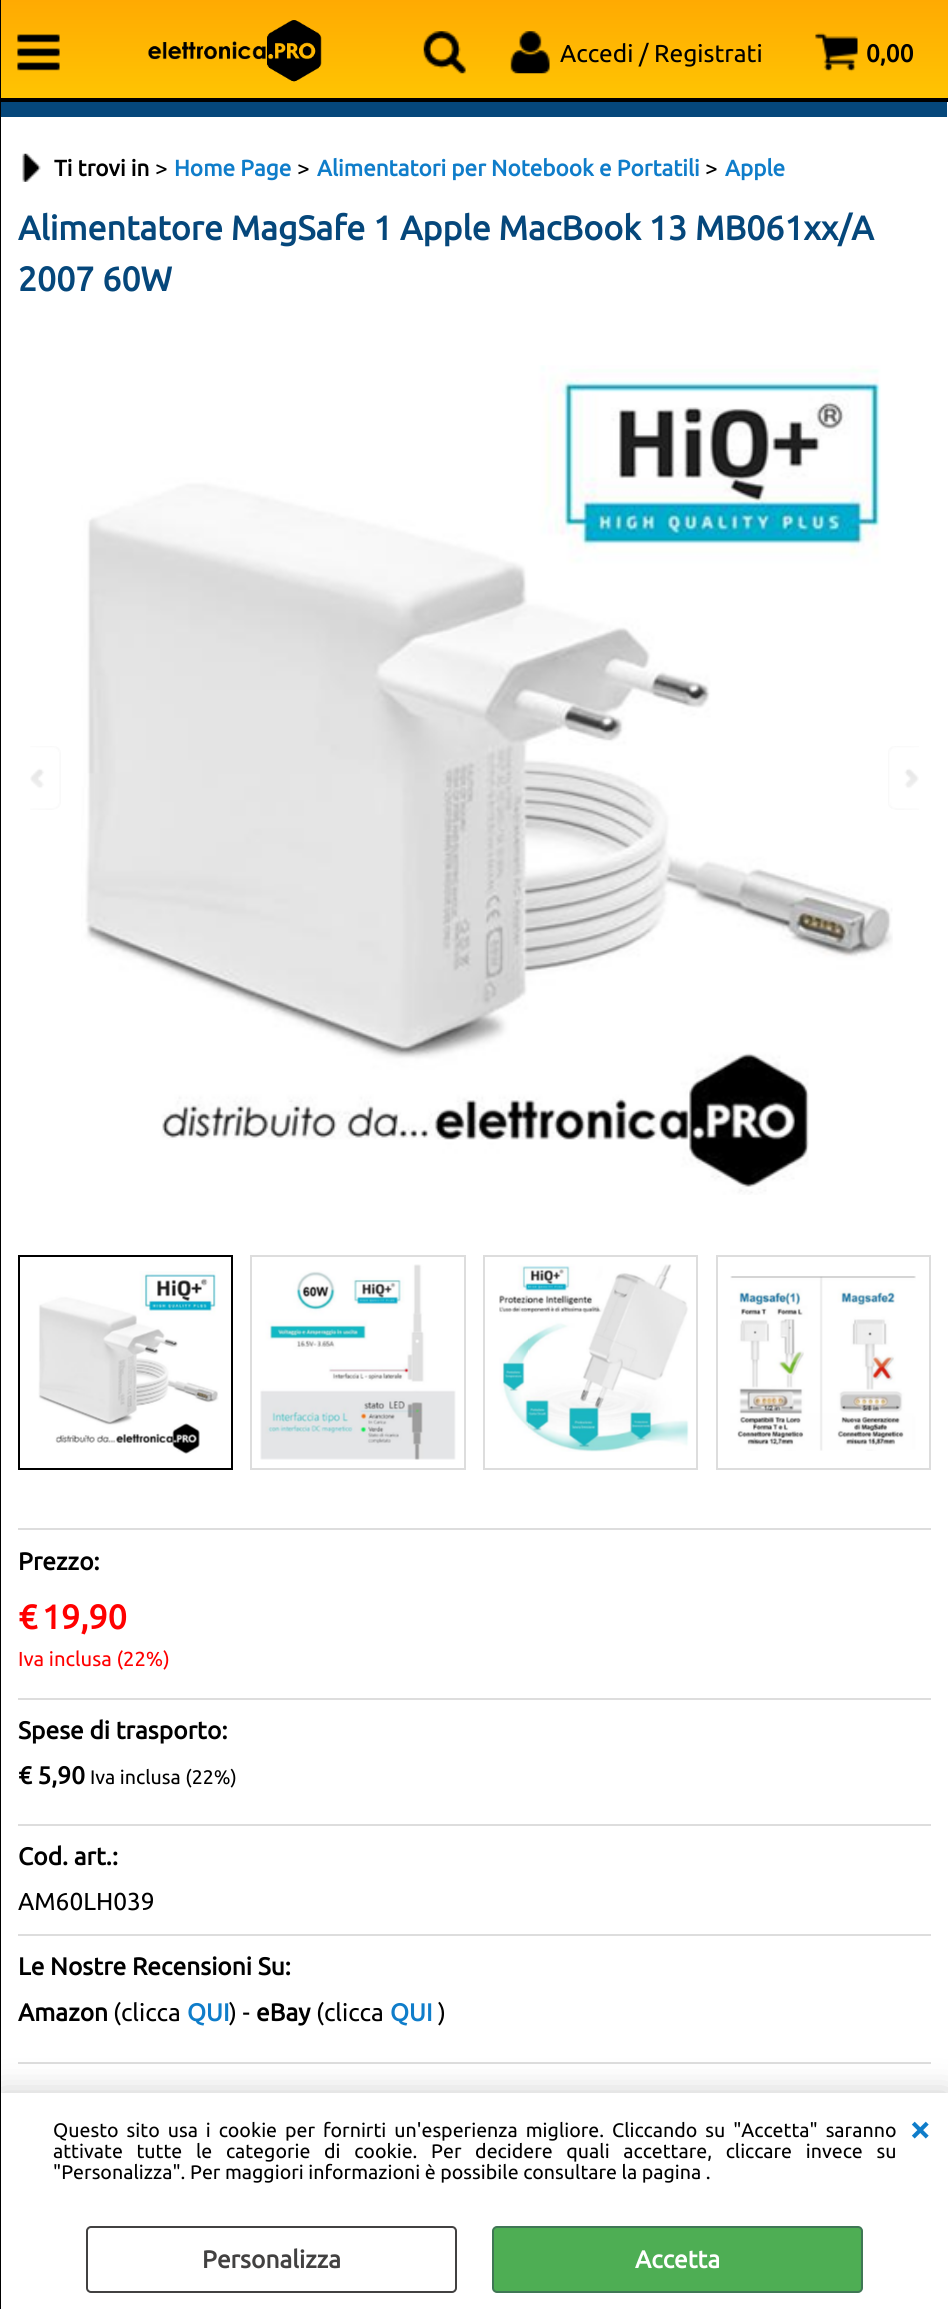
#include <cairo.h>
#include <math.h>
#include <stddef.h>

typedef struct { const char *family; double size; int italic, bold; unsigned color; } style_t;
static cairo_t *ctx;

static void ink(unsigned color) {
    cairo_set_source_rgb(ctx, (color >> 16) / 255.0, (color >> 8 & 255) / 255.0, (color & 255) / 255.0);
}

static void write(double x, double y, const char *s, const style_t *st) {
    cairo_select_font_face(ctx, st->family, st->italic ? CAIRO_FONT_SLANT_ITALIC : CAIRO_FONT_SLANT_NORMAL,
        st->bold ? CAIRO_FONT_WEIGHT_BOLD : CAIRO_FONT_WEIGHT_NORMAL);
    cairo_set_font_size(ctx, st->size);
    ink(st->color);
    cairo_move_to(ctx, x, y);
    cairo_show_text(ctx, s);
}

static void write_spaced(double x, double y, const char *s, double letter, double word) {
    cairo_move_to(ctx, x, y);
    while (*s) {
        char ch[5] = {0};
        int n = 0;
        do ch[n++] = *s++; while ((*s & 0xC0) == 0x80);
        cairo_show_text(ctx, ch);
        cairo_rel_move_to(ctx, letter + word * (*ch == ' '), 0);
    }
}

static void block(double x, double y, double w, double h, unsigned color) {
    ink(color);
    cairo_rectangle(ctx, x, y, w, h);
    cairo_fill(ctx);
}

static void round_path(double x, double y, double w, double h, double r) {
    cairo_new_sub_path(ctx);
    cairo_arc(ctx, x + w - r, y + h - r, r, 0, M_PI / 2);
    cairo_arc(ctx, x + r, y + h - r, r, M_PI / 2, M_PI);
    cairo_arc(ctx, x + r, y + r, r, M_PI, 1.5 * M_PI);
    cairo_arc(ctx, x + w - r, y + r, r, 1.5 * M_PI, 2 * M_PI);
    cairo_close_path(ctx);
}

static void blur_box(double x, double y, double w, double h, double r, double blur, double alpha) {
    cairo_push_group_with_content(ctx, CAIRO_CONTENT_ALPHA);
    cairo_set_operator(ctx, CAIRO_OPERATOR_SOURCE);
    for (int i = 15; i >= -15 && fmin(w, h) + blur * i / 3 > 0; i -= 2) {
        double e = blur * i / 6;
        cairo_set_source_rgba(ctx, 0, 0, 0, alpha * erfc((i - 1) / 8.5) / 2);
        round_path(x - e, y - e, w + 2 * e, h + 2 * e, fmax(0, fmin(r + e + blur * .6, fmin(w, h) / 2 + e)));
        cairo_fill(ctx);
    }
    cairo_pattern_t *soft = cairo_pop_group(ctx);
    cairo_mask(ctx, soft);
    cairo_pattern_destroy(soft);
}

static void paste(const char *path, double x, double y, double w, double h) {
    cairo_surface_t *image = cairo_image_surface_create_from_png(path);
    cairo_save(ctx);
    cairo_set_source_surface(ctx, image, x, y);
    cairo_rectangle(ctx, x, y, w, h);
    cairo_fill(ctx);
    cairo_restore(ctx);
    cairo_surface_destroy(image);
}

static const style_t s1 = {"Ubuntu", 24.5, 0, 0, 0x000000};
static const style_t s2 = {"Ubuntu", 24.5, 0, 1, 0x000000};
static const style_t s3 = {"Ubuntu", 22.5, 0, 1, 0x000000};
static const style_t s4 = {"Ubuntu", 22.5, 0, 0, 0x000000};
static const style_t s5 = {"Ubuntu", 22.5, 0, 1, 0x0f7dca};
static const style_t s6 = {"Ubuntu", 33.9, 0, 1, 0x05477b};
static const style_t s7 = {"Ubuntu", 33.9, 0, 1, 0xff0000};
static const style_t s8 = {"Ubuntu", 20.25, 0, 0, 0xff0000};
static const style_t s9 = {"Ubuntu", 19.6, 0, 0, 0x000000};
static const style_t s10 = {"Ubuntu", 24.5, 0, 1, 0x0f7dca};
static const style_t s11 = {"Ubuntu", 38, 0, 1, 0x0f7dca};
static const style_t s12 = {"Ubuntu", 24.5, 0, 1, 0x424141};
static const style_t s13 = {"Ubuntu", 24.5, 0, 1, 0xffffff};

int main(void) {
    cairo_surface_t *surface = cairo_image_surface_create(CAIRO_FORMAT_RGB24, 948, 2309);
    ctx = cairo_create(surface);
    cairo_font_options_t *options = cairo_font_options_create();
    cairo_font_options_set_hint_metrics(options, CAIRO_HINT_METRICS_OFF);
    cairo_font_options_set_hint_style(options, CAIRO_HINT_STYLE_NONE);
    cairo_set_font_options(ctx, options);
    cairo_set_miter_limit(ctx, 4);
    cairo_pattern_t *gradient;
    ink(0xffffff);
    cairo_paint(ctx);
    block(0, 98, 948, 4, 0x000000);
    block(18, 2062, 913, 2, 0xdddddd);
    ink(0x000000);
    blur_box(0, 2093, 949, 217, 0, 16, 0.2);
    block(0, 0, 1, 2309, 0x000000);
    gradient = cairo_pattern_create_linear(54, 98, 54, 0);
    cairo_pattern_add_color_stop_rgba(gradient, 0, 1, 0.769, 0.008, 1);
    cairo_pattern_add_color_stop_rgba(gradient, 1, 1, 0.667, 0.008, 1);
    cairo_set_source(ctx, gradient);
    cairo_pattern_destroy(gradient);
    cairo_rectangle(ctx, 1, 0, 108, 98);
    cairo_fill(ctx);
    paste("pic1.png", 17, 34, 43, 37);
    gradient = cairo_pattern_create_linear(233, 98, 233, 0);
    cairo_pattern_add_color_stop_rgba(gradient, 0, 1, 0.769, 0.008, 1);
    cairo_pattern_add_color_stop_rgba(gradient, 1, 1, 0.667, 0.008, 1);
    cairo_set_source(ctx, gradient);
    cairo_pattern_destroy(gradient);
    cairo_rectangle(ctx, 109, 0, 248, 98);
    cairo_fill(ctx);
    paste("pic2.png", 148, 20, 174, 62);
    gradient = cairo_pattern_create_linear(424, 98, 424, 0);
    cairo_pattern_add_color_stop_rgba(gradient, 0, 1, 0.769, 0.008, 1);
    cairo_pattern_add_color_stop_rgba(gradient, 1, 1, 0.667, 0.008, 1);
    cairo_set_source(ctx, gradient);
    cairo_pattern_destroy(gradient);
    cairo_rectangle(ctx, 357, 0, 135, 98);
    cairo_fill(ctx);
    paste("pic3.png", 423, 31, 43, 43);
    gradient = cairo_pattern_create_linear(645, 98, 645, 0);
    cairo_pattern_add_color_stop_rgba(gradient, 0, 1, 0.769, 0.008, 1);
    cairo_pattern_add_color_stop_rgba(gradient, 1, 1, 0.667, 0.008, 1);
    cairo_set_source(ctx, gradient);
    cairo_pattern_destroy(gradient);
    cairo_rectangle(ctx, 492, 0, 306, 98);
    cairo_fill(ctx);
    paste("pic4.png", 510, 31, 40, 43);
    write(560, 62, "Accedi / Registrati", &s1);
    gradient = cairo_pattern_create_linear(873, 98, 873, 0);
    cairo_pattern_add_color_stop_rgba(gradient, 0, 1, 0.769, 0.008, 1);
    cairo_pattern_add_color_stop_rgba(gradient, 1, 1, 0.667, 0.008, 1);
    cairo_set_source(ctx, gradient);
    cairo_pattern_destroy(gradient);
    cairo_rectangle(ctx, 798, 0, 150, 98);
    cairo_fill(ctx);
    paste("pic5.png", 815, 32, 43, 40);
    write(866, 62, "0,00", &s2);
    block(1, 102, 946, 15, 0x05477b);
    paste("pic6.png", 22, 153, 19, 29);
    write(54, 176, "Ti trovi in", &s3);
    write(155, 176, ">", &s4);
    write(174, 176, "Home Page", &s5);
    write(297, 176, ">", &s4);
    write(317, 176, "Alimentatori per Notebook e Portatili", &s5);
    write(705, 176, ">", &s4);
    write(725, 176, "Apple", &s5);
    write(18, 240, "Alimentatore MagSafe 1 Apple MacBook 13 MB061xx/A", &s6);
    write(18, 291, "2007 60W", &s6);
    paste("pic7.png", 81, 365, 812, 830);
    cairo_rectangle(ctx, 19, 1256, 213, 213);
    ink(0x000000);
    cairo_stroke(ctx);
    paste("pic8.png", 38, 1271, 181, 183);
    cairo_rectangle(ctx, 251, 1256, 214, 213);
    ink(0xdddddd);
    cairo_stroke(ctx);
    paste("pic9.png", 260, 1264, 196, 196);
    cairo_rectangle(ctx, 484, 1256, 213, 213);
    cairo_stroke(ctx);
    paste("pic10.png", 499, 1264, 190, 188);
    cairo_rectangle(ctx, 717, 1256, 213, 213);
    cairo_stroke(ctx);
    paste("pic11.png", 730, 1276, 186, 175);
    block(18, 1528, 913, 2, 0xdddddd);
    write(18, 1570, "Prezzo:", &s2);
    write(18, 1629, "€", &s7);
    write(42, 1629, "19,90", &s7);
    write(18, 1666, "Iva inclusa (22%)", &s8);
    block(18, 1698, 913, 2, 0xdddddd);
    write(18, 1739, "Spese di trasporto:", &s2);
    write(18, 1784, "€ 5,90", &s2);
    write(90, 1784, "Iva inclusa (22%)", &s9);
    block(18, 1824, 913, 2, 0xdddddd);
    write(18, 1865, "Cod. art.:", &s2);
    write(18, 1910, "AM60LH039", &s1);
    block(18, 1934, 913, 2, 0xdddddd);
    write(18, 1975, "Le Nostre Recensioni Su:", &s2);
    write(18, 2021, "Amazon", &s2);
    write(113, 2021, "(clicca", &s1);
    write(187, 2021, "QUI", &s10);
    write(229, 2021, ") -", &s1);
    write(256, 2021, "eBay", &s2);
    write(316, 2021, "(clicca", &s1);
    write(390, 2021, "QUI", &s10);
    write(438, 2021, ")", &s1);
    paste("pic12.png", 30, 746, 31, 64);
    paste("pic13.png", 888, 746, 31, 64);
    block(1, 2093, 947, 216, 0xffffff);
    cairo_set_font_size(ctx, 19.6);
    ink(0x000000);
    write_spaced(53, 2137, "Questo sito usa i cookie per fornirti un'esperienza migliore. Cliccando su \"Accetta\" saranno", 0, 3.4);
    write_spaced(53, 2158, "attivate tutte le categorie di cookie. Per decidere quali accettare, cliccare invece su", 0, 9.1);
    write(53, 2179, "\"Personalizza\". Per maggiori informazioni è possibile consultare la pagina .", &s9);
    write(909, 2142, "×", &s11);
    round_path(87, 2227, 369, 65, 4);
    ink(0x424141);
    cairo_stroke(ctx);
    write(202, 2268, "Personalizza", &s12);
    ink(0x4eae54);
    round_path(493, 2227, 369, 65, 4);
    cairo_fill_preserve(ctx);
    ink(0x3f7755);
    cairo_stroke(ctx);
    write(635, 2268, "Accetta", &s13);
    cairo_surface_write_to_png(surface, "screenshot.png");
    cairo_font_options_destroy(options);
    cairo_destroy(ctx);
    cairo_surface_destroy(surface);
    return 0;
}
